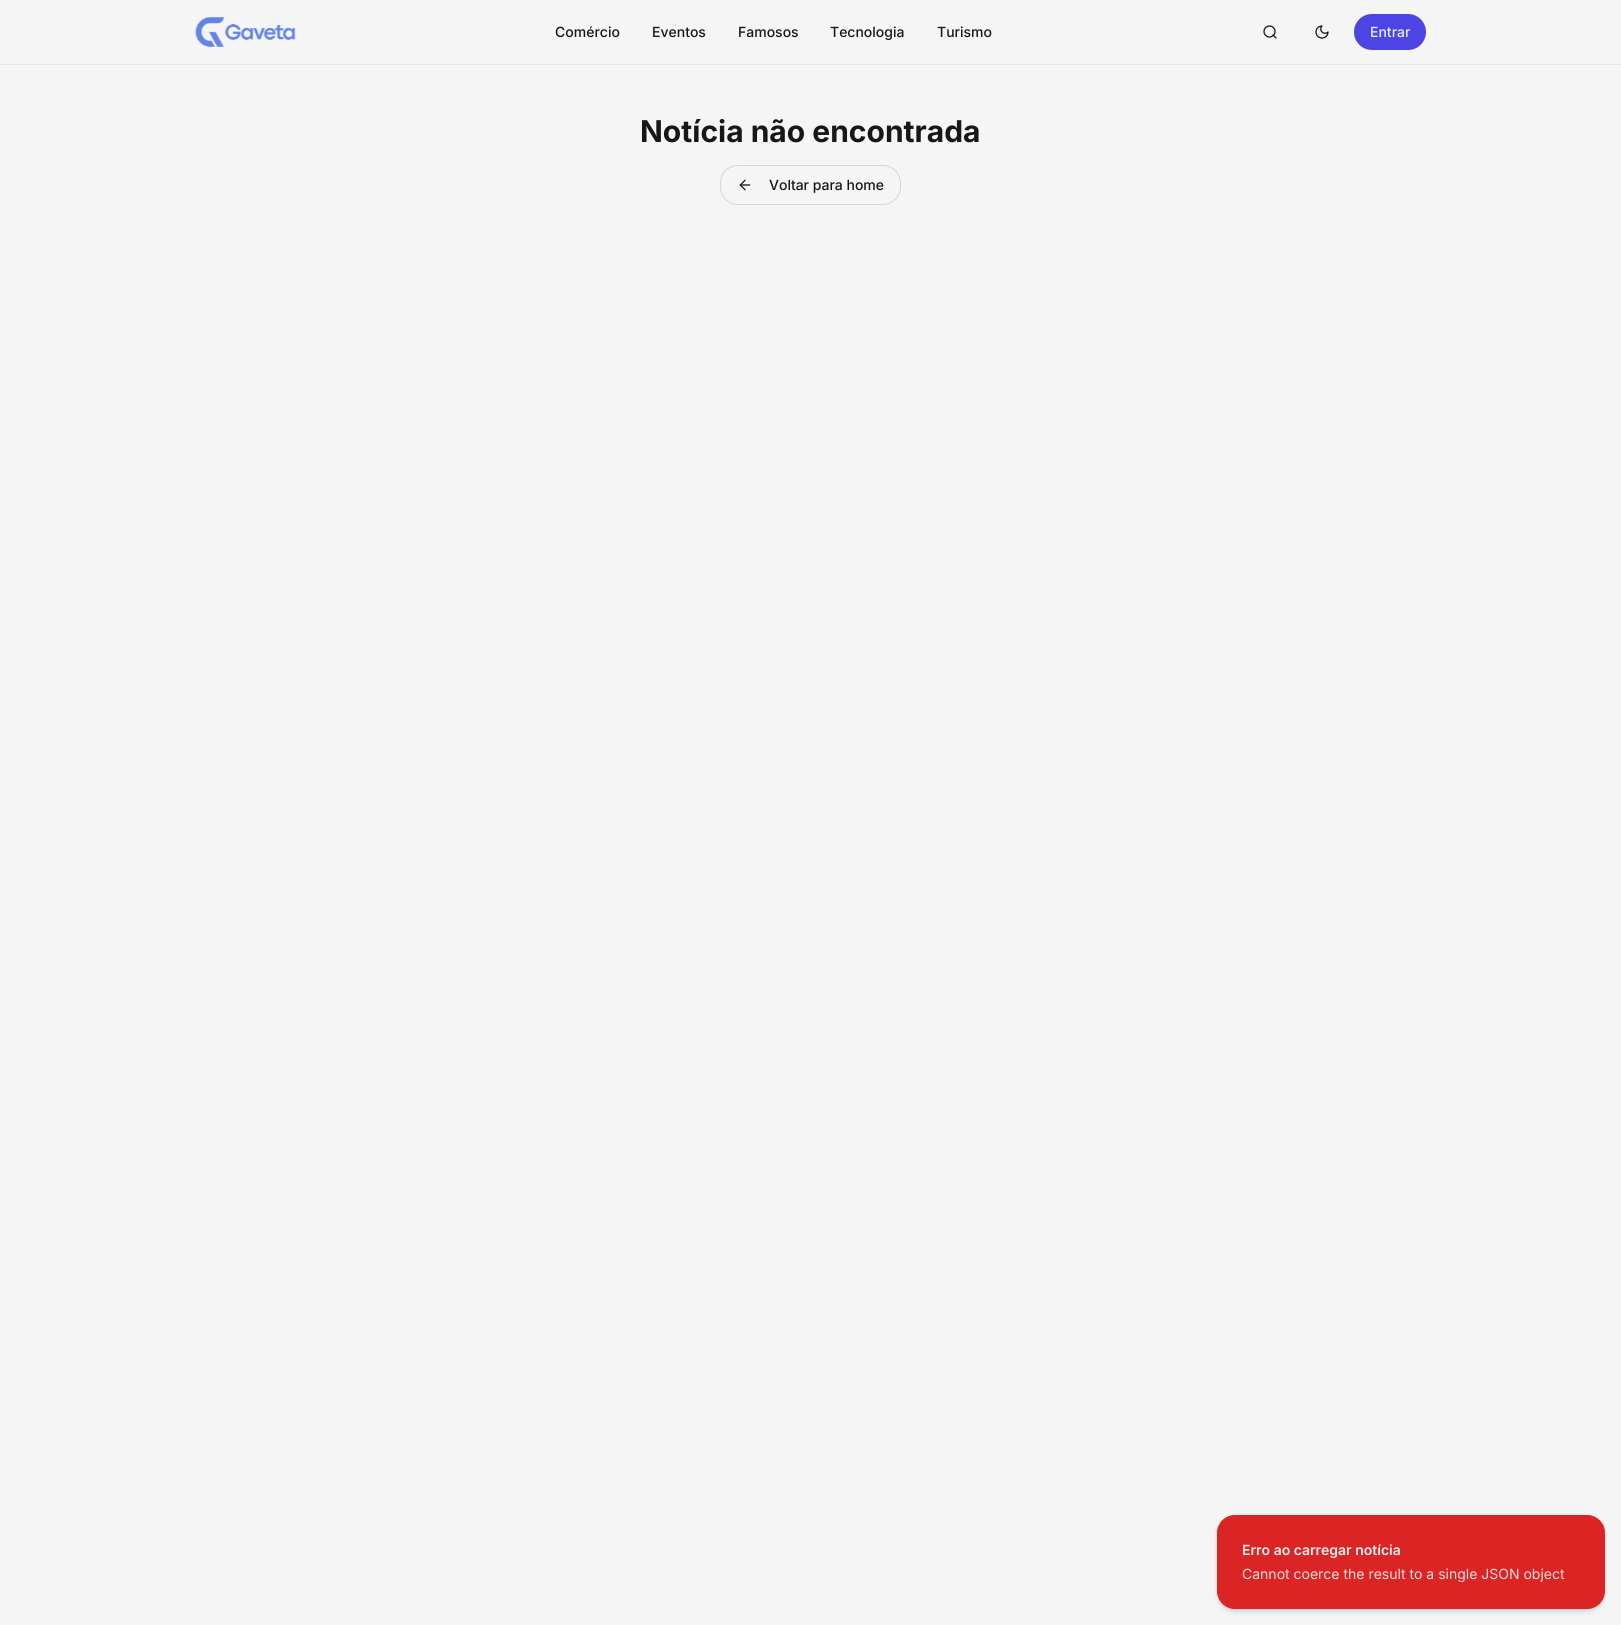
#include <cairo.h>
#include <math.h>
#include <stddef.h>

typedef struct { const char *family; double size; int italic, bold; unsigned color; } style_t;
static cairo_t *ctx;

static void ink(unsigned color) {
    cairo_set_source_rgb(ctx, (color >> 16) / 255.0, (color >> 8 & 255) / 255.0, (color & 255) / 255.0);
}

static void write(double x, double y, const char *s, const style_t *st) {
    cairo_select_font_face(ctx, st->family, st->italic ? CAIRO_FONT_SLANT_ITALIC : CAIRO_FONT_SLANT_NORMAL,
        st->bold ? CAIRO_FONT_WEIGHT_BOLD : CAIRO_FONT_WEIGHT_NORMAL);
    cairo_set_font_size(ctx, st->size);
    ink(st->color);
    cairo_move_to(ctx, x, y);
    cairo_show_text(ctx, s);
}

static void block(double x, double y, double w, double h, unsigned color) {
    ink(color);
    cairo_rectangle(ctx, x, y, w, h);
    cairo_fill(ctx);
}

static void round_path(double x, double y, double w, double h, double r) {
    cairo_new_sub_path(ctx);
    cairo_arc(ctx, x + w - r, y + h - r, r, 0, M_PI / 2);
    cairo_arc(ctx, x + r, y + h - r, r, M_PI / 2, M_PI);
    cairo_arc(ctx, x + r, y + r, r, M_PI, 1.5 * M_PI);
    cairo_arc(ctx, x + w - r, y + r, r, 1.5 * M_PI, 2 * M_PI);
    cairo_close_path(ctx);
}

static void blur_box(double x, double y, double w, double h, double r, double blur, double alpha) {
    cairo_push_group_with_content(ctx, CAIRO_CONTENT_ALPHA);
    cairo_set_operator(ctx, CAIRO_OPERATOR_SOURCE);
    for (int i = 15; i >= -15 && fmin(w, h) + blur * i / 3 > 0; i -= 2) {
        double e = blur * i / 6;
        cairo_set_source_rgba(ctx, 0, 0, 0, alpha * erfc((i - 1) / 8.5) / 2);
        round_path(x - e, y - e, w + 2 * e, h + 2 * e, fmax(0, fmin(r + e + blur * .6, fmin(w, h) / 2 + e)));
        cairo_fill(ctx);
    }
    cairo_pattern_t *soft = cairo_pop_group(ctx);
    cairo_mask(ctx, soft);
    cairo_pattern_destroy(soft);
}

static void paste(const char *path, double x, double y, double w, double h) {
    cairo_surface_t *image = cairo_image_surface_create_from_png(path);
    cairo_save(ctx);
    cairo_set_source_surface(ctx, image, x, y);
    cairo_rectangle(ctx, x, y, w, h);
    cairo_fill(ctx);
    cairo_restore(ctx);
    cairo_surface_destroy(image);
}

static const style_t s1 = {"Inter Medium", 14, 0, 0, 0x171717};
static const style_t s2 = {"Inter Medium", 14, 0, 0, 0xebf0ff};
static const style_t s3 = {"Inter", 30, 0, 1, 0x171717};
static const style_t s4 = {"Inter SemiBold", 14, 0, 0, 0xfef1f1};
static const style_t s5 = {"Inter", 14, 0, 0, 0xfbdddd};

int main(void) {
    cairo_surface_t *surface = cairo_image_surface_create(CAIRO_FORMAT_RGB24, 1621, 1625);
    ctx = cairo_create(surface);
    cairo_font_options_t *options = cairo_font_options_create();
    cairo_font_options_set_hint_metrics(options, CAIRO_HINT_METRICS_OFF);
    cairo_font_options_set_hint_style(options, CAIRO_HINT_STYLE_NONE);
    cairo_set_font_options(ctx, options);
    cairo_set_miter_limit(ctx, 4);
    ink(0xf5f5f5);
    cairo_paint(ctx);
    block(0, 64, 1621, 1, 0xe5e5e5);
    paste("pic1.png", 195, 16, 101, 31);
    write(555, 37, "Comércio", &s1);
    write(652, 37, "Eventos", &s1);
    write(738, 37, "Famosos", &s1);
    write(830, 37, "Tecnologia", &s1);
    write(937, 37, "Turismo", &s1);
    cairo_new_path(ctx);
    cairo_arc(ctx, 1269.5, 31.5, 5.5, 0, 2 * M_PI);
    cairo_set_line_width(ctx, 1.3);
    cairo_stroke(ctx);
    cairo_new_path(ctx);
    cairo_move_to(ctx, 1276, 38);
    cairo_line_to(ctx, 1273, 35);
    cairo_set_line_cap(ctx, CAIRO_LINE_CAP_ROUND);
    cairo_set_line_join(ctx, CAIRO_LINE_JOIN_ROUND);
    cairo_stroke(ctx);
    paste("pic2.png", 1315, 25, 14, 14);
    ink(0x4c44e4);
    round_path(1354, 14, 72, 36, 18);
    cairo_fill(ctx);
    write(1370, 37, "Entrar", &s2);
    write(640, 142, "Notícia não encontrada", &s3);
    round_path(720.5, 165.5, 180, 39, 17.5);
    ink(0xd4d4d4);
    cairo_set_line_width(ctx, 1);
    cairo_set_line_cap(ctx, CAIRO_LINE_CAP_BUTT);
    cairo_set_line_join(ctx, CAIRO_LINE_JOIN_MITER);
    cairo_stroke(ctx);
    paste("pic3.png", 739, 179, 12, 12);
    write(769, 190, "Voltar para home", &s1);
    ink(0x000000);
    blur_box(1218, 1520, 386, 92, 17, 3, 0.1);
    blur_box(1217, 1516, 388, 94, 18, 1.5, 0.1);
    ink(0xdb2424);
    round_path(1217.5, 1515.5, 387, 93, 17.5);
    cairo_fill_preserve(ctx);
    cairo_stroke(ctx);
    write(1242, 1555, "Erro ao carregar notícia", &s4);
    write(1242, 1579, "Cannot coerce the result to a single JSON object", &s5);
    cairo_surface_write_to_png(surface, "screenshot.png");
    cairo_font_options_destroy(options);
    cairo_destroy(ctx);
    cairo_surface_destroy(surface);
    return 0;
}
